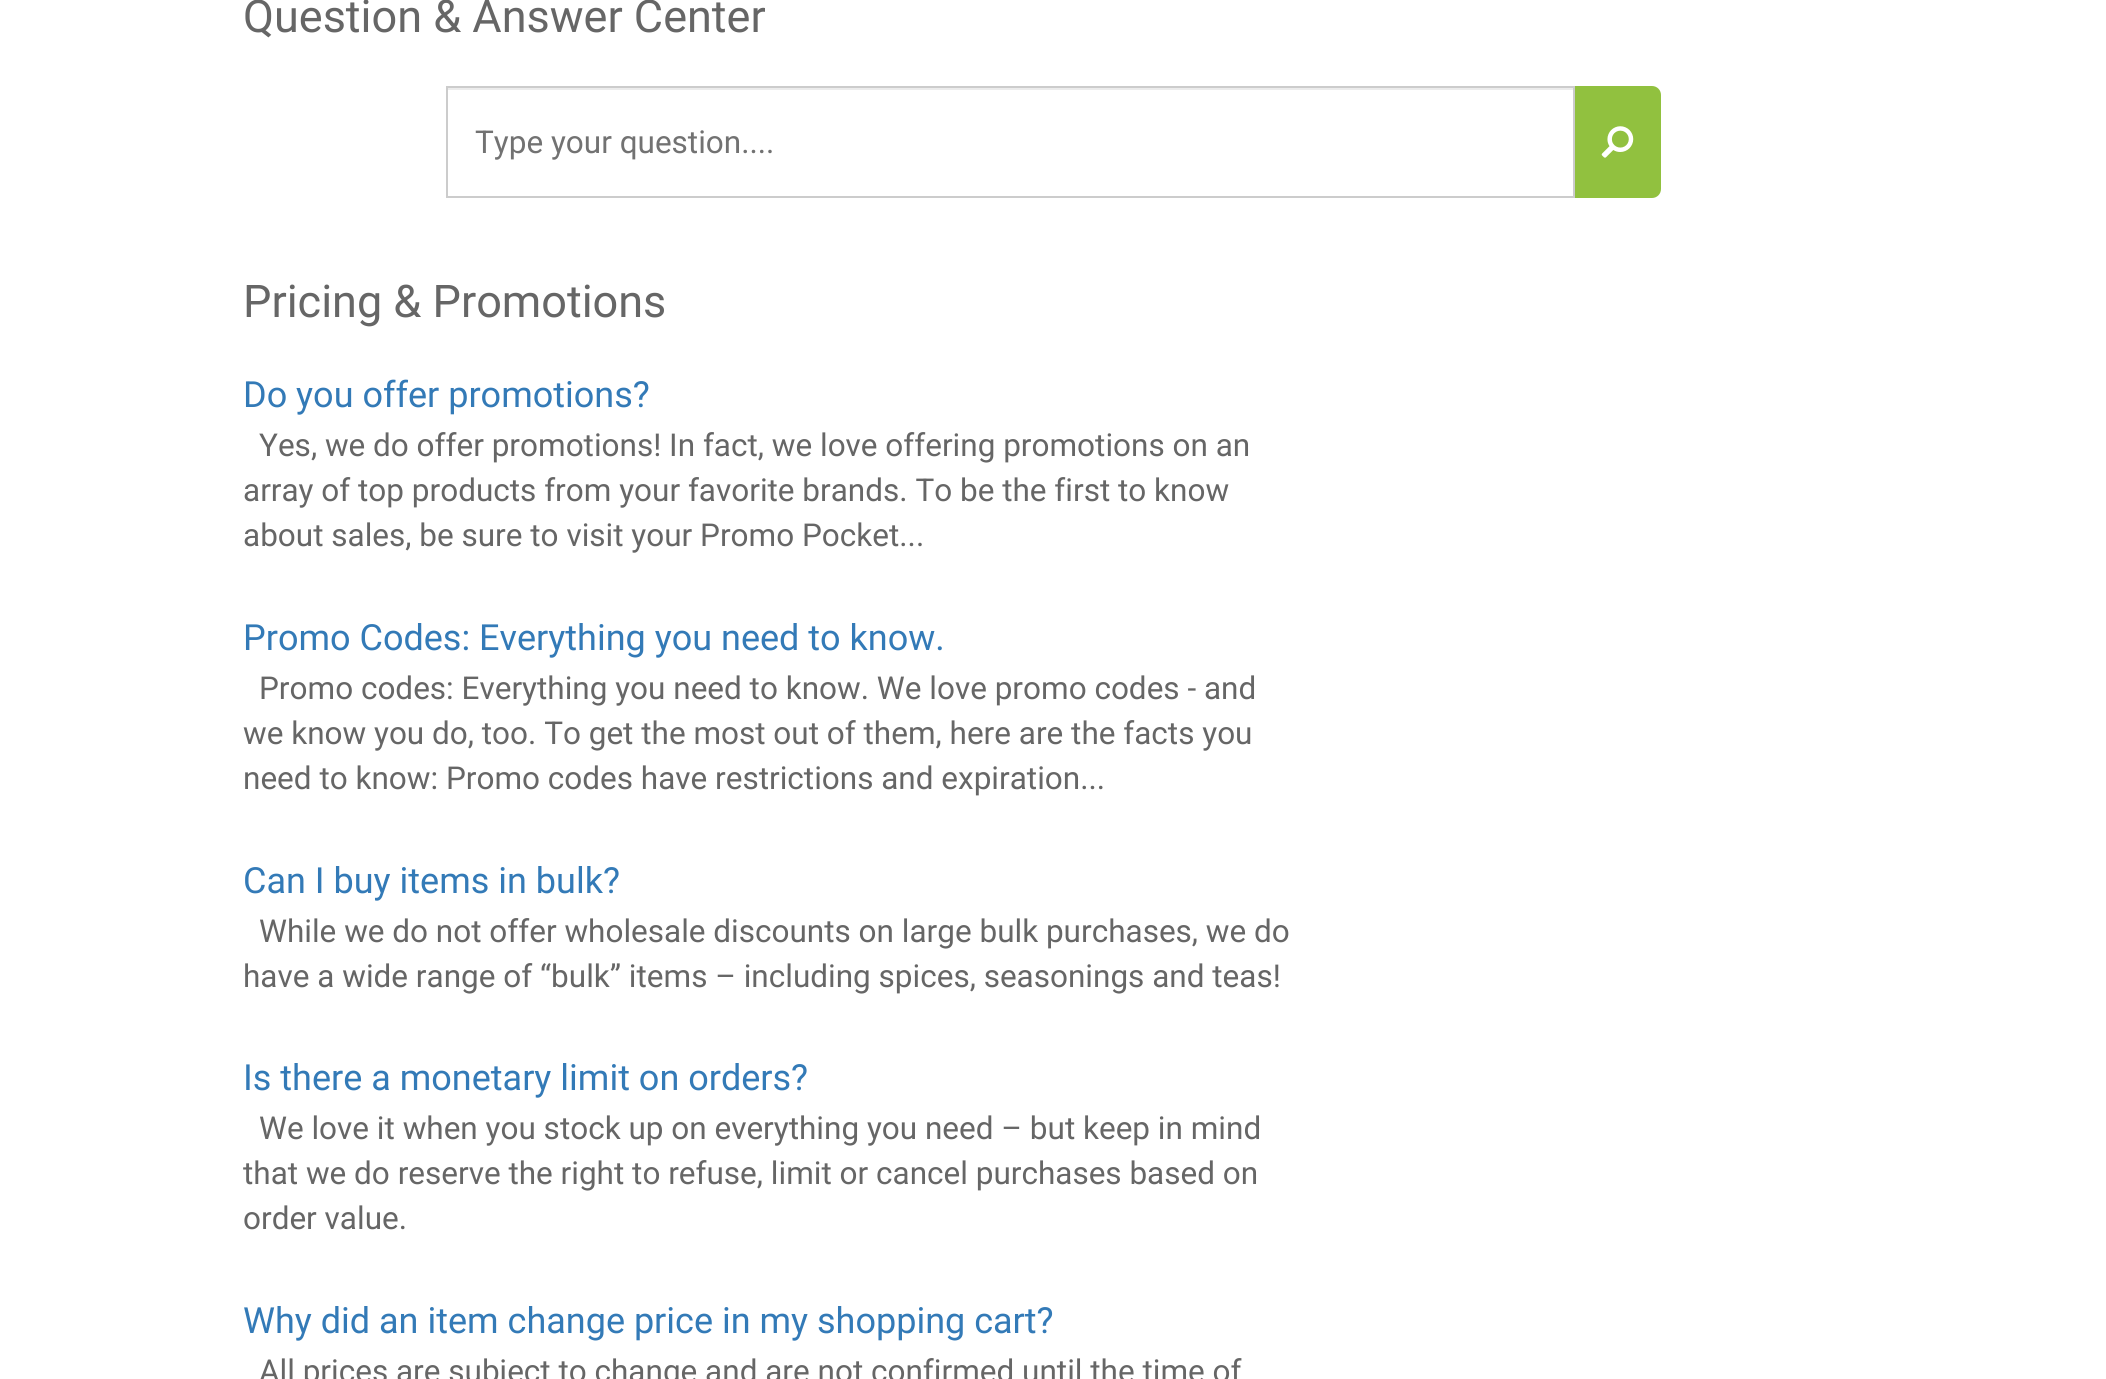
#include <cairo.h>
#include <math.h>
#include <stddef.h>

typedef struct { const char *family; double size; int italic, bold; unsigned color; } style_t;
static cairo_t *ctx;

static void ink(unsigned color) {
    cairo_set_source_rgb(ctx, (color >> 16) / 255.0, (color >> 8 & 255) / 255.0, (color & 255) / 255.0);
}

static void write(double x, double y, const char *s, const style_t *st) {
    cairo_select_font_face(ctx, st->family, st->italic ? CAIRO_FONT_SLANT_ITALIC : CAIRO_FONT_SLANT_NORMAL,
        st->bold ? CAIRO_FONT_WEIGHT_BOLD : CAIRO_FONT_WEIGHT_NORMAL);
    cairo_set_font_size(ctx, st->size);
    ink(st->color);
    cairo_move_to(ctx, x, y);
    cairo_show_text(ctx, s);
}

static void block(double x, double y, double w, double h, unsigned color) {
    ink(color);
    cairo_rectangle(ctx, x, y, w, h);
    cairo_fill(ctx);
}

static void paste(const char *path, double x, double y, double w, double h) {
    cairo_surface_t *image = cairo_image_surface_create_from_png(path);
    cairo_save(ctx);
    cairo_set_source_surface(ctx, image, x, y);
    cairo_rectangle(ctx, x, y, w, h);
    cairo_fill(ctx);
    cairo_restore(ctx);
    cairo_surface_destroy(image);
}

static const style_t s1 = {"Roboto", 45, 0, 0, 0x666666};
static const style_t s2 = {"Roboto", 31.5, 0, 0, 0x727272};
static const style_t s3 = {"Roboto", 36, 0, 0, 0x337ab7};
static const style_t s4 = {"Roboto", 31.5, 0, 0, 0x666666};

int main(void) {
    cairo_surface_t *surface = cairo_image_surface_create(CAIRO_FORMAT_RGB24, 2106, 1379);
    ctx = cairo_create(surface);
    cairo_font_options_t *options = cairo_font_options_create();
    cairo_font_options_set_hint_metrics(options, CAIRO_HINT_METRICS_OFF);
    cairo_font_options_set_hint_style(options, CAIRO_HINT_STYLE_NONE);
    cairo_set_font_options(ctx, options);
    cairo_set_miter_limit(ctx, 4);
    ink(0xffffff);
    cairo_paint(ctx);
    write(243, 32, "Question & Answer Center", &s1);
    block(448, 88, 1125, 2, 0xececec);
    cairo_rectangle(ctx, 447, 87, 1127, 110);
    ink(0xcccccc);
    cairo_stroke(ctx);
    write(475, 153, "Type your question....", &s2);
    ink(0x91c13f);
    cairo_new_path(ctx);
    cairo_move_to(ctx, 1575, 86);
    cairo_line_to(ctx, 1652, 86);
    cairo_curve_to(ctx, 1657, 86, 1661, 90, 1661, 95);
    cairo_line_to(ctx, 1661, 189);
    cairo_curve_to(ctx, 1661, 194, 1657, 198, 1652, 198);
    cairo_line_to(ctx, 1575, 198);
    cairo_close_path(ctx);
    cairo_fill(ctx);
    paste("pic1.png", 1601, 126, 33, 32);
    write(243, 317, "Pricing & Promotions", &s1);
    write(243, 407, "Do you offer promotions?", &s3);
    write(259, 456, "Yes, we do offer promotions! In fact, we love offering promotions on an", &s4);
    write(243, 501, "array of top products from your favorite brands. To be the first to know", &s4);
    write(243, 546, "about sales, be sure to visit your Promo Pocket...", &s4);
    write(243, 650, "Promo Codes: Everything you need to know.", &s3);
    write(259, 699, "Promo codes: Everything you need to know. We love promo codes - and", &s4);
    write(243, 744, "we know you do, too. To get the most out of them, here are the facts you", &s4);
    write(243, 789, "need to know: Promo codes have restrictions and expiration...", &s4);
    write(243, 893, "Can I buy items in bulk?", &s3);
    write(259, 942, "While we do not offer wholesale discounts on large bulk purchases, we do", &s4);
    write(243, 987, "have a wide range of “bulk” items – including spices, seasonings and teas!", &s4);
    write(243, 1090, "Is there a monetary limit on orders?", &s3);
    write(259, 1139, "We love it when you stock up on everything you need – but keep in mind", &s4);
    write(243, 1184, "that we do reserve the right to refuse, limit or cancel purchases based on", &s4);
    write(243, 1229, "order value.", &s4);
    write(243, 1333, "Why did an item change price in my shopping cart?", &s3);
    write(259, 1382, "All prices are subject to change and are not confirmed until the time of", &s4);
    cairo_surface_write_to_png(surface, "screenshot.png");
    cairo_font_options_destroy(options);
    cairo_destroy(ctx);
    cairo_surface_destroy(surface);
    return 0;
}
